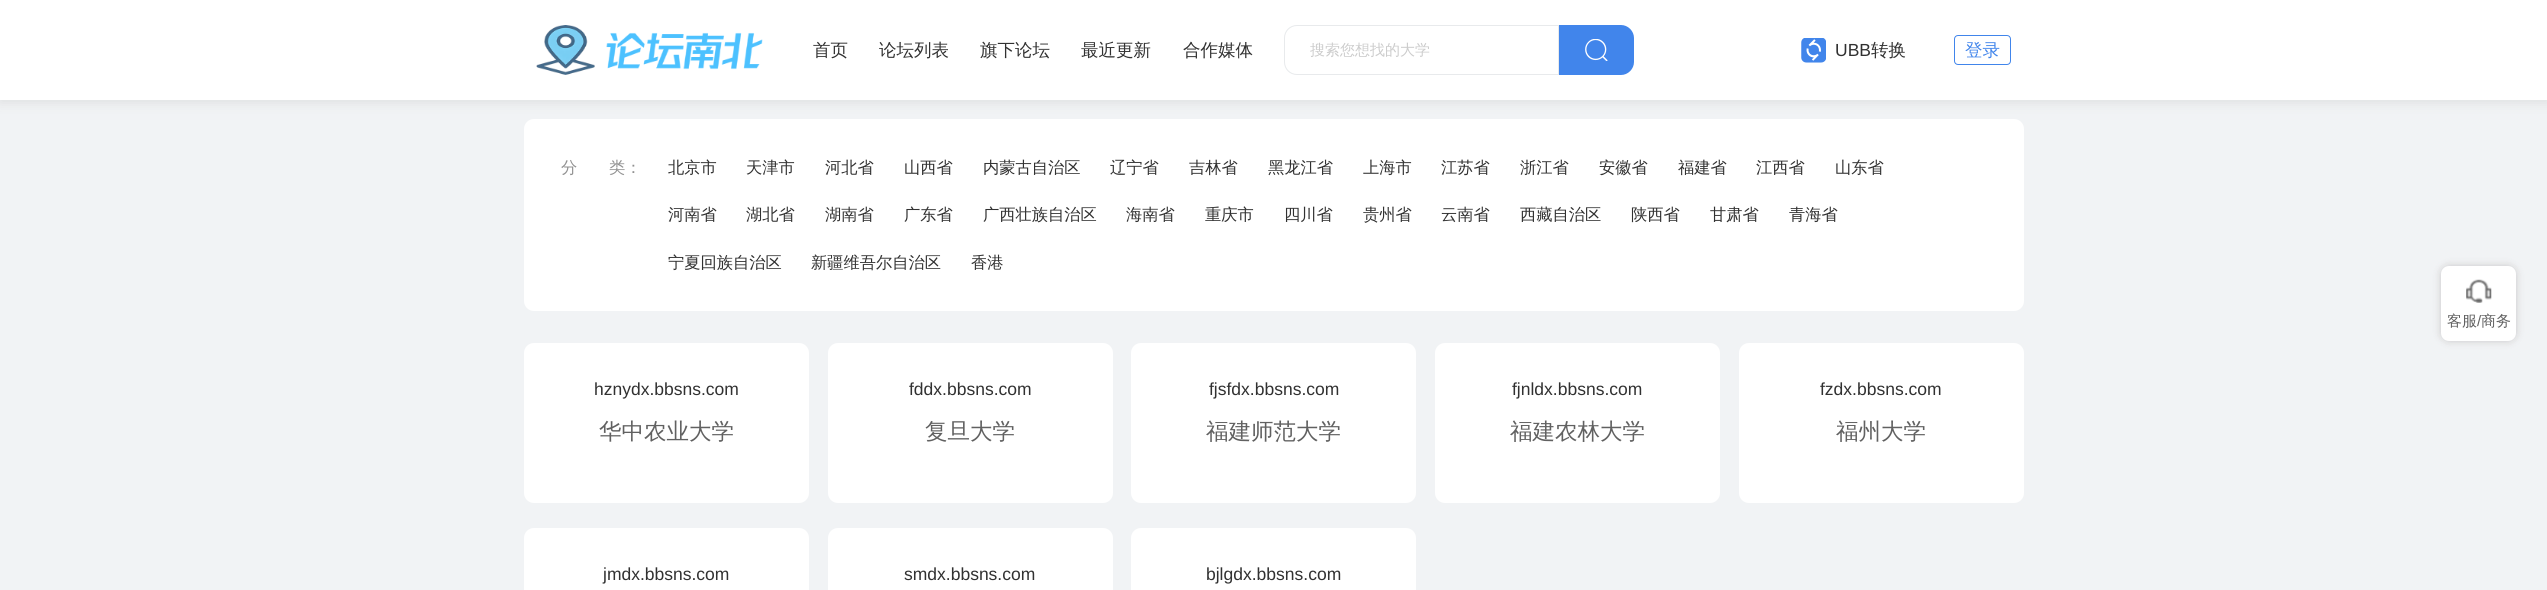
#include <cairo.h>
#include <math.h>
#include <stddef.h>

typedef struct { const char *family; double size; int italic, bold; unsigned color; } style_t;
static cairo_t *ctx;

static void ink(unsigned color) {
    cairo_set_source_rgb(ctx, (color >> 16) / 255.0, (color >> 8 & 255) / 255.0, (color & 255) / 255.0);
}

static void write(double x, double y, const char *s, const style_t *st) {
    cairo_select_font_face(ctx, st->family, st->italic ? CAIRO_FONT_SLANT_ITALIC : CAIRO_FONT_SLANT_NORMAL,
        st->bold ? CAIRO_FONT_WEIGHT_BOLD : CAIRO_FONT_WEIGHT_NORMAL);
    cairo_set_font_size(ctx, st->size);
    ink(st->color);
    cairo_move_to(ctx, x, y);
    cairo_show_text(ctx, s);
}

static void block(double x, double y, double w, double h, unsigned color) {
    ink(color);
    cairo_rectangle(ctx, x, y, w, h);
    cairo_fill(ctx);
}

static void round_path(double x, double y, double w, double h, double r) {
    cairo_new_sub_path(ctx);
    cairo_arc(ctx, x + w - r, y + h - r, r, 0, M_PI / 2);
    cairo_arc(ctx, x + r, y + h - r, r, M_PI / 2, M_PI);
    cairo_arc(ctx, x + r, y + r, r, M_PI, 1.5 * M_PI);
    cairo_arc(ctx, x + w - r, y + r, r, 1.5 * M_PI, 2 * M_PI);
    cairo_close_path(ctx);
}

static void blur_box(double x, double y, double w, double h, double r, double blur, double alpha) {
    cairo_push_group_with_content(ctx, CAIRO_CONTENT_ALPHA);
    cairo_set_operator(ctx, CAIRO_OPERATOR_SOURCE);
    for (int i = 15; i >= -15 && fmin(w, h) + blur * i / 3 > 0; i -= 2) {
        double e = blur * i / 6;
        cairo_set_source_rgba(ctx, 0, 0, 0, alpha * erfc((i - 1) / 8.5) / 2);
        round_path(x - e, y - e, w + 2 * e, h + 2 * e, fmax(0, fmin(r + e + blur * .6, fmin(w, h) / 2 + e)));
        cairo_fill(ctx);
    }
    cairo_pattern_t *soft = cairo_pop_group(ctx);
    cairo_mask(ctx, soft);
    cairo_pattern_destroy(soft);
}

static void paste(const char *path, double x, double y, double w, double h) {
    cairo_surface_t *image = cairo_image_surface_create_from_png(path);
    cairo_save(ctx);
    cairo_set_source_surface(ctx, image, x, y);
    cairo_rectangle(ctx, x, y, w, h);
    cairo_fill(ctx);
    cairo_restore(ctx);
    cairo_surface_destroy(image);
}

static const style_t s1 = {"WenQuanYi Zen Hei Medium", 17.5, 0, 0, 0x313131};
static const style_t s2 = {"WenQuanYi Zen Hei Medium", 15, 0, 0, 0xcccccc};
static const style_t s3 = {"Liberation Sans", 17.5, 0, 0, 0x313131};
static const style_t s4 = {"WenQuanYi Zen Hei Medium", 17.5, 0, 0, 0x4185eb};
static const style_t s5 = {"WenQuanYi Zen Hei Medium", 16.25, 0, 0, 0x919191};
static const style_t s6 = {"WenQuanYi Zen Hei Medium", 16.25, 0, 0, 0x313131};
static const style_t s7 = {"WenQuanYi Zen Hei Medium", 22.5, 0, 0, 0x616161};
static const style_t s8 = {"WenQuanYi Zen Hei Medium", 15, 0, 0, 0x616161};
static const style_t s9 = {"Liberation Sans", 15, 0, 0, 0x616161};

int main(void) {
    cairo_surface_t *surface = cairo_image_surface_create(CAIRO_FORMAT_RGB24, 2547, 590);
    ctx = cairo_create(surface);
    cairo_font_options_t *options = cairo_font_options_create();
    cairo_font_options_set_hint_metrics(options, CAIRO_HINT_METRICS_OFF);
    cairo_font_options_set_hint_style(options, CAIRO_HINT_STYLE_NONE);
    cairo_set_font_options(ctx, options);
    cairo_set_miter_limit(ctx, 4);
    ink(0xf1f3f5);
    cairo_paint(ctx);
    ink(0xffffff);
    round_path(524, 119, 1500, 192, 10);
    cairo_fill(ctx);
    ink(0xcccccc);
    blur_box(0, 3, 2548, 100, 0, 6, 0.5);
    block(0, 0, 2547, 100, 0xffffff);
    paste("pic1.png", 536, 25, 227, 50);
    write(813, 56, "首页", &s1);
    write(879, 56, "论坛列表", &s1);
    write(980, 56, "旗下论坛", &s1);
    write(1081, 56, "最近更新", &s1);
    write(1183, 56, "合作媒体", &s1);
    cairo_new_path(ctx);
    cairo_move_to(ctx, 1297, 25.5);
    cairo_line_to(ctx, 1558.5, 25.5);
    cairo_line_to(ctx, 1558.5, 74.5);
    cairo_line_to(ctx, 1297, 74.5);
    cairo_curve_to(ctx, 1290, 74.5, 1284.5, 69, 1284.5, 62);
    cairo_line_to(ctx, 1284.5, 38);
    cairo_curve_to(ctx, 1284.5, 31, 1290, 25.5, 1297, 25.5);
    cairo_close_path(ctx);
    ink(0xe8eaec);
    cairo_set_line_width(ctx, 1);
    cairo_stroke(ctx);
    write(1310, 55, "搜索您想找的大学", &s2);
    ink(0x4185eb);
    cairo_new_path(ctx);
    cairo_move_to(ctx, 1559, 25);
    cairo_line_to(ctx, 1621, 25);
    cairo_curve_to(ctx, 1628, 25, 1634, 31, 1634, 38);
    cairo_line_to(ctx, 1634, 62);
    cairo_curve_to(ctx, 1634, 69, 1628, 75, 1621, 75);
    cairo_line_to(ctx, 1559, 75);
    cairo_close_path(ctx);
    cairo_fill(ctx);
    paste("pic2.png", 1585, 39, 23, 22);
    paste("pic3.png", 1801, 38, 25, 25);
    write(1835, 56, "UBB", &s3);
    write(1871, 56, "转换", &s1);
    round_path(1954.5, 35.5, 56, 29, 3.5);
    ink(0x4185eb);
    cairo_stroke(ctx);
    write(1965, 56, "登录", &s4);
    write(561, 173, "分", &s5);
    write(609, 173, "类：", &s5);
    write(668, 173, "北京市", &s6);
    write(746, 173, "天津市", &s6);
    write(825, 173, "河北省", &s6);
    write(904, 173, "山西省", &s6);
    write(983, 173, "内蒙古自治区", &s6);
    write(1110, 173, "辽宁省", &s6);
    write(1189, 173, "吉林省", &s6);
    write(1268, 173, "黑龙江省", &s6);
    write(1363, 173, "上海市", &s6);
    write(1441, 173, "江苏省", &s6);
    write(1520, 173, "浙江省", &s6);
    write(1599, 173, "安徽省", &s6);
    write(1678, 173, "福建省", &s6);
    write(1756, 173, "江西省", &s6);
    write(1835, 173, "山东省", &s6);
    write(668, 220, "河南省", &s6);
    write(746, 220, "湖北省", &s6);
    write(825, 220, "湖南省", &s6);
    write(904, 220, "广东省", &s6);
    write(983, 220, "广西壮族自治区", &s6);
    write(1126, 220, "海南省", &s6);
    write(1205, 220, "重庆市", &s6);
    write(1284, 220, "四川省", &s6);
    write(1363, 220, "贵州省", &s6);
    write(1441, 220, "云南省", &s6);
    write(1520, 220, "西藏自治区", &s6);
    write(1631, 220, "陕西省", &s6);
    write(1710, 220, "甘肃省", &s6);
    write(1789, 220, "青海省", &s6);
    write(668, 268, "宁夏回族自治区", &s6);
    write(811, 268, "新疆维吾尔自治区", &s6);
    write(971, 268, "香港", &s6);
    ink(0xffffff);
    round_path(524, 343, 285, 160, 10);
    cairo_fill(ctx);
    write(594, 395, "hznydx.bbsns.com", &s3);
    write(599, 439, "华中农业大学", &s7);
    ink(0xffffff);
    round_path(828, 343, 285, 160, 10);
    cairo_fill(ctx);
    write(909, 395, "fddx.bbsns.com", &s3);
    write(925, 439, "复旦大学", &s7);
    ink(0xffffff);
    round_path(1131, 343, 285, 160, 10);
    cairo_fill(ctx);
    write(1209, 395, "fjsfdx.bbsns.com", &s3);
    write(1206, 439, "福建师范大学", &s7);
    ink(0xffffff);
    round_path(1435, 343, 285, 160, 10);
    cairo_fill(ctx);
    write(1512, 395, "fjnldx.bbsns.com", &s3);
    write(1510, 439, "福建农林大学", &s7);
    ink(0xffffff);
    round_path(1739, 343, 285, 160, 10);
    cairo_fill(ctx);
    write(1820, 395, "fzdx.bbsns.com", &s3);
    write(1836, 439, "福州大学", &s7);
    ink(0xffffff);
    round_path(524, 528, 285, 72, 10);
    cairo_fill(ctx);
    write(603, 580, "jmdx.bbsns.com", &s3);
    ink(0xffffff);
    round_path(828, 528, 285, 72, 10);
    cairo_fill(ctx);
    write(904, 580, "smdx.bbsns.com", &s3);
    ink(0xffffff);
    round_path(1131, 528, 285, 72, 10);
    cairo_fill(ctx);
    write(1206, 580, "bjlgdx.bbsns.com", &s3);
    ink(0x200f0a);
    blur_box(2441, 266, 75, 75, 8, 4, 0.2);
    ink(0xffffff);
    round_path(2441, 266, 75, 75, 8);
    cairo_fill(ctx);
    paste("pic4.png", 2466, 279, 26, 24);
    write(2447, 326, "客服", &s8);
    write(2477, 326, "/", &s9);
    write(2481, 326, "商务", &s8);
    cairo_surface_write_to_png(surface, "screenshot.png");
    cairo_font_options_destroy(options);
    cairo_destroy(ctx);
    cairo_surface_destroy(surface);
    return 0;
}
